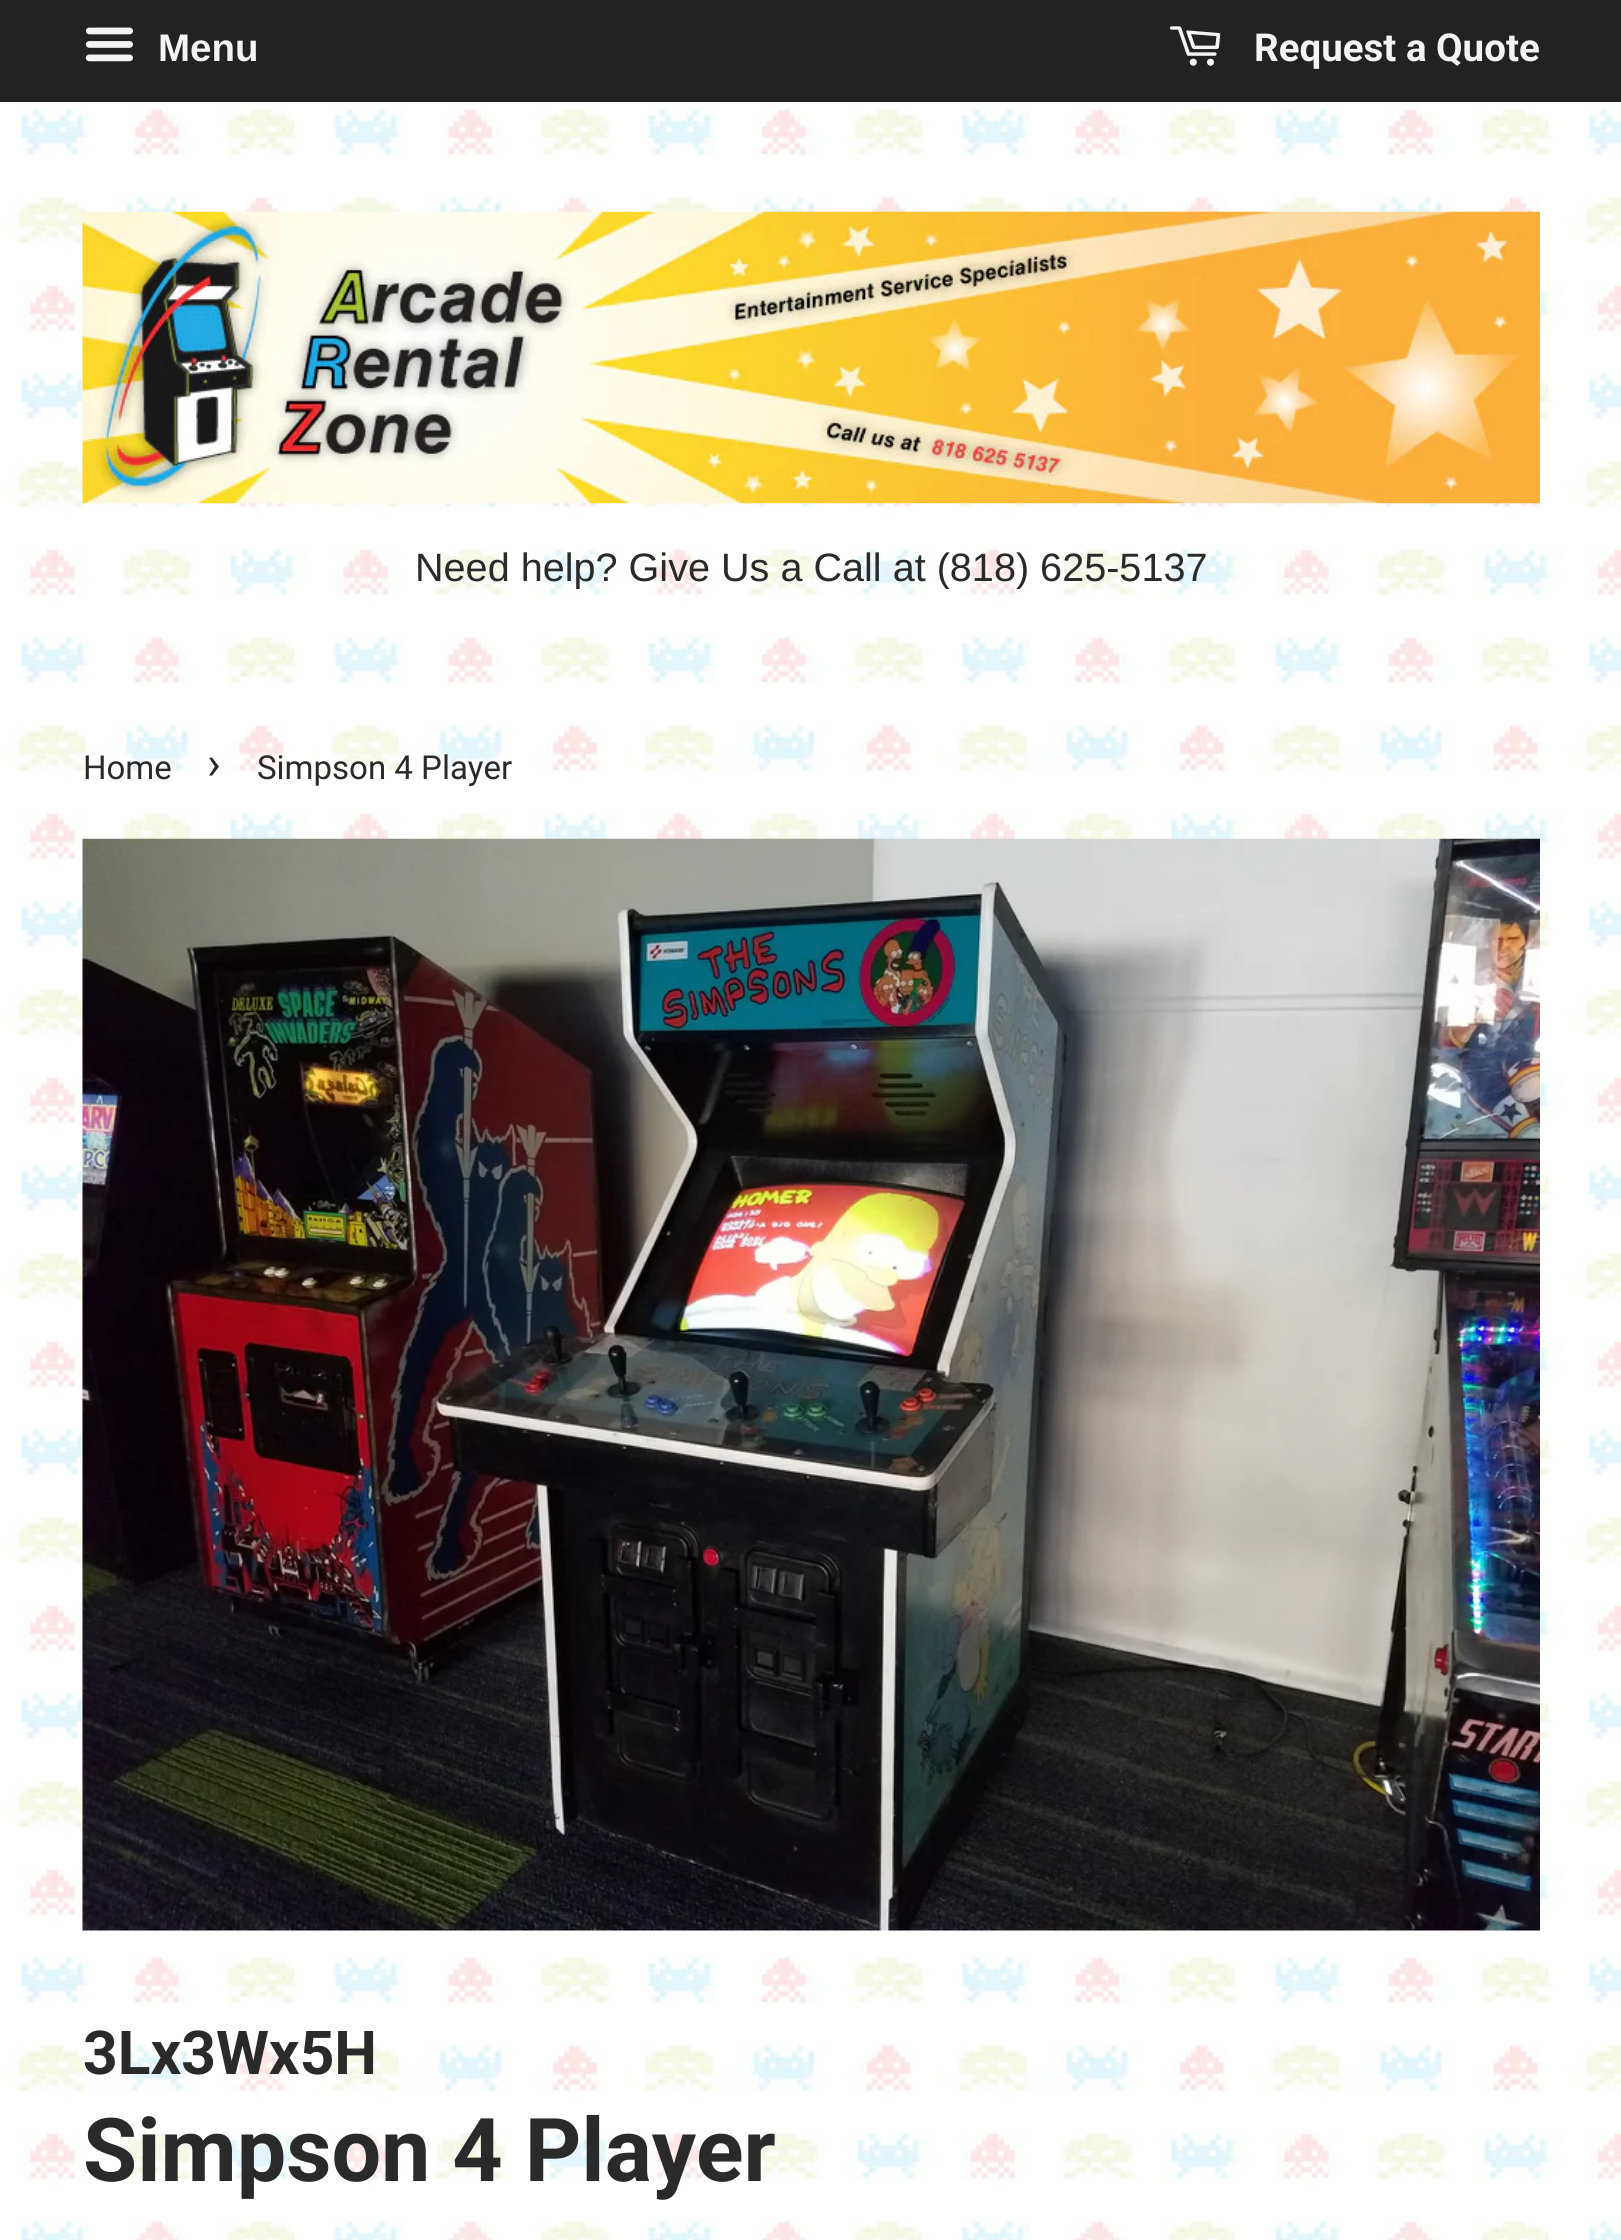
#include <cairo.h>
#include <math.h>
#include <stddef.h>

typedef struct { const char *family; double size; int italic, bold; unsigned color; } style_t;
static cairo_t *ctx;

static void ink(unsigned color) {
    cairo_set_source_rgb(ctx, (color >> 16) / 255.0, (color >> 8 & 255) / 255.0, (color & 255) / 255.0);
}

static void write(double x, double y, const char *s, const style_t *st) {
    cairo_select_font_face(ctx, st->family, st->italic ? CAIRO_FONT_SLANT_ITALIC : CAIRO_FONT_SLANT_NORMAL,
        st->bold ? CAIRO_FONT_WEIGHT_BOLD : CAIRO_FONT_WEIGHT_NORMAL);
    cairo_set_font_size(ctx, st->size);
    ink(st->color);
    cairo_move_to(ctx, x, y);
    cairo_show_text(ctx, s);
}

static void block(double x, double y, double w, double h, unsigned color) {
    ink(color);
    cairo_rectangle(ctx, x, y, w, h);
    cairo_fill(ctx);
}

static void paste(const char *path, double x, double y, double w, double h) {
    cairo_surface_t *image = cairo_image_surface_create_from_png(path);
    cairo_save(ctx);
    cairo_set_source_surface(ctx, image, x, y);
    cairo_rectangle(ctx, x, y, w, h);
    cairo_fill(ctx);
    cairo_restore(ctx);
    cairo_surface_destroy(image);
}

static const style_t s1 = {"Liberation Sans", 38.5, 0, 1, 0xf4f4f4};
static const style_t s2 = {"Roboto", 38.5, 0, 1, 0xf4f4f4};
static const style_t s3 = {"Liberation Sans", 39.6, 0, 0, 0x2a2a2a};
static const style_t s4 = {"Roboto", 33, 0, 0, 0x2a2a2a};
static const style_t s5 = {"Roboto", 46, 0, 0, 0x2a2a2a};
static const style_t s6 = {"Roboto", 60.5, 0, 1, 0x2a2a2a};
static const style_t s7 = {"Roboto", 88, 0, 1, 0x2a2a2a};

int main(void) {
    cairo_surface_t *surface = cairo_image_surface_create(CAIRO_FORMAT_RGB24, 1621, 2240);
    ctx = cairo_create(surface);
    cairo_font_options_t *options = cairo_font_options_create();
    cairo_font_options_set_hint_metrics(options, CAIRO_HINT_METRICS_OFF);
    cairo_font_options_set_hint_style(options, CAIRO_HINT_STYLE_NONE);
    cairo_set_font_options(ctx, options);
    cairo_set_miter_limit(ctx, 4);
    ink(0xffffff);
    cairo_paint(ctx);
    paste("pic1.png", 0, 102, 1621, 2138);
    block(0, 0, 1621, 102, 0x222222);
    paste("pic2.png", 85, 27, 48, 35);
    write(158, 61, "Menu", &s1);
    paste("pic3.png", 1169, 26, 52, 40);
    write(1254, 61, "Request a Quote", &s2);
    paste("pic4.png", 82, 211, 1458, 293);
    cairo_save(ctx);
    cairo_rectangle(ctx, 83, 545, 1457, 44);
    cairo_clip(ctx);
    write(415, 581, "Need help? Give Us a Call at (818) 625-5137", &s3);
    cairo_restore(ctx);
    write(83, 779, "Home", &s4);
    write(207, 779, "›", &s5);
    write(257, 779, "Simpson 4 Player", &s4);
    paste("pic5.png", 82, 838, 1458, 1093);
    write(83, 2074, "3Lx3Wx5H", &s6);
    write(83, 2181, "Simpson 4 Player", &s7);
    cairo_surface_write_to_png(surface, "screenshot.png");
    cairo_font_options_destroy(options);
    cairo_destroy(ctx);
    cairo_surface_destroy(surface);
    return 0;
}
